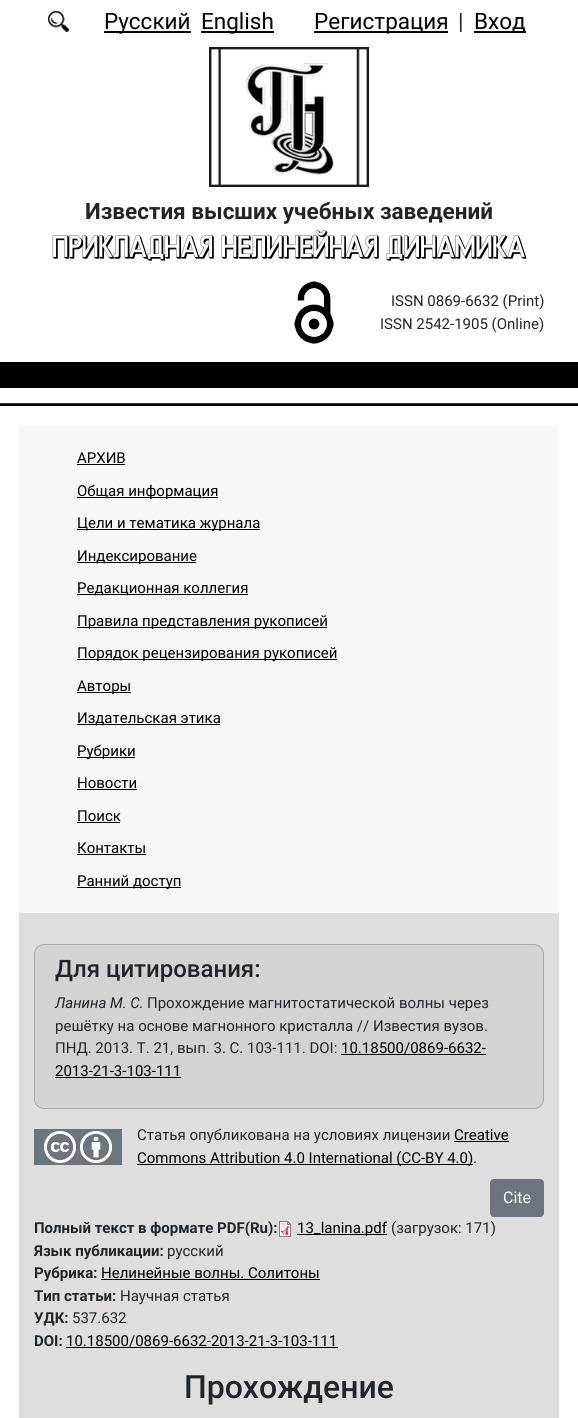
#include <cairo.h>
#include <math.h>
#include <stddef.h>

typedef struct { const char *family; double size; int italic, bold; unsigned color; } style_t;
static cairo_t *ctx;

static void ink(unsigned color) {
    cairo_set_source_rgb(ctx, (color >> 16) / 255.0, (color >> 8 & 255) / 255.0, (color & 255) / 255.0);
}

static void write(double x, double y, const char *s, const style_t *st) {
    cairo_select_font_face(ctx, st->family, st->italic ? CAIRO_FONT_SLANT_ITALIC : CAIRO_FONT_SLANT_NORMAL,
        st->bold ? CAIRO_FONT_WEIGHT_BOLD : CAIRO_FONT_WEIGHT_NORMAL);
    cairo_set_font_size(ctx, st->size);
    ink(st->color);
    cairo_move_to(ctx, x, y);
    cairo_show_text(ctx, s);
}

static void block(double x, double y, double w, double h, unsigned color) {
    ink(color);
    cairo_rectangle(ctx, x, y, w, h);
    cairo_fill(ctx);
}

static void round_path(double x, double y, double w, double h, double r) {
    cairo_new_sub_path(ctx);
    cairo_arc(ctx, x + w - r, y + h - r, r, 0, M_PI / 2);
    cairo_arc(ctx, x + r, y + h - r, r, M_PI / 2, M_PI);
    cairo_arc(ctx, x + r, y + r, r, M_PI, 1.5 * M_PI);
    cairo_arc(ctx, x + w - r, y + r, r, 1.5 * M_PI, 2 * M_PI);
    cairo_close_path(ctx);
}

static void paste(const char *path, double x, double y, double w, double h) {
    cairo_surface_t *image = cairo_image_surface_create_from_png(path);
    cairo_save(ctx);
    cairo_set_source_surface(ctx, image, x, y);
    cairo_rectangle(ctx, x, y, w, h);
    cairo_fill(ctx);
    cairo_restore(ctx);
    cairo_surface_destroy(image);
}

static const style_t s1 = {"Roboto", 22.5, 0, 0, 0x000000};
static const style_t s2 = {"Roboto", 22.5, 0, 0, 0x212529};
static const style_t s3 = {"Roboto", 22.5, 0, 1, 0x212529};
static const style_t s4 = {"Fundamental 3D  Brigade", 30, 0, 0, 0x000000};
static const style_t s5 = {"Roboto", 15, 0, 0, 0x212529};
static const style_t s6 = {"Roboto", 15, 0, 0, 0x000000};
static const style_t s7 = {"Roboto Medium", 24, 0, 0, 0x212529};
static const style_t s8 = {"Roboto", 15, 1, 0, 0x212529};
static const style_t s9 = {"Roboto", 16, 0, 0, 0xffffff};
static const style_t s10 = {"Roboto", 15, 0, 1, 0x212529};
static const style_t s11 = {"Roboto Medium", 32, 0, 0, 0x212529};

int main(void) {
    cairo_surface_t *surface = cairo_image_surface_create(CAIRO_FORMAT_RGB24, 578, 1418);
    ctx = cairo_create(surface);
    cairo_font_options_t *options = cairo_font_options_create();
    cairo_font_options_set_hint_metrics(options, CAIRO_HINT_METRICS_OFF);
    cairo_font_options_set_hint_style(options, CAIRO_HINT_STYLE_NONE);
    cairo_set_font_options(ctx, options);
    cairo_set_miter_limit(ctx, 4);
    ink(0xffffff);
    cairo_paint(ctx);
    paste("pic1.png", 48, 11, 21, 21);
    block(104, 31, 87, 2, 0x000000);
    write(104, 29, "Русский", &s1);
    block(201, 31, 73, 2, 0x000000);
    write(201, 29, "English", &s1);
    block(314, 31, 134, 2, 0x000000);
    write(314, 29, "Регистрация", &s1);
    write(458, 29, "|", &s2);
    block(474, 31, 52, 2, 0x000000);
    write(474, 29, "Вход", &s1);
    paste("pic2.png", 209, 47, 160, 140);
    write(85, 219, "Известия высших учебных заведений", &s3);
    write(52, 257, "ПРИКЛАДНАЯ НЕЛИНЕЙНАЯ ДИНАМИКА", &s4);
    paste("pic3.png", 294, 281, 40, 63);
    write(391, 306, "ISSN 0869-6632 (Print)", &s5);
    write(380, 329, "ISSN 2542-1905 (Online)", &s5);
    block(0, 362, 578, 26, 0x000000);
    block(0, 403, 578, 1, 0x333333);
    block(0, 404, 578, 2, 0x000000);
    block(19, 426, 540, 487, 0xf7f7f7);
    write(77, 463, "АРХИВ", &s6);
    block(77, 464, 48, 1, 0x000000);
    block(77, 497, 141, 1, 0x000000);
    write(77, 496, "Общая информация", &s6);
    block(77, 529, 183, 1, 0x000000);
    write(77, 528, "Цели и тематика журнала", &s6);
    block(77, 562, 119, 1, 0x000000);
    write(77, 561, "Индексирование", &s6);
    block(77, 594, 171, 1, 0x000000);
    write(77, 593, "Редакционная коллегия", &s6);
    block(77, 627, 250, 1, 0x000000);
    write(77, 626, "Правила представления рукописей", &s6);
    block(77, 659, 260, 1, 0x000000);
    write(77, 658, "Порядок рецензирования рукописей", &s6);
    block(77, 692, 54, 1, 0x000000);
    write(77, 691, "Авторы", &s6);
    block(77, 724, 143, 1, 0x000000);
    write(77, 723, "Издательская этика", &s6);
    block(77, 757, 58, 1, 0x000000);
    write(77, 756, "Рубрики", &s6);
    write(77, 788, "Новости", &s6);
    block(77, 789, 60, 1, 0x000000);
    write(77, 821, "Поиск", &s6);
    block(77, 822, 43, 1, 0x000000);
    write(77, 853, "Контакты", &s6);
    block(77, 854, 69, 1, 0x000000);
    block(77, 887, 104, 1, 0x000000);
    write(77, 886, "Ранний доступ", &s6);
    block(19, 913, 540, 505, 0xdedede);
    ink(0xd3d3d3);
    round_path(34.5, 944.5, 509, 164, 9.5);
    cairo_fill_preserve(ctx);
    ink(0xa9a9a9);
    cairo_set_line_width(ctx, 1);
    cairo_stroke(ctx);
    write(55, 977, "Для цитирования:", &s7);
    write(55, 1008, "Ланина М. С.", &s8);
    write(147, 1008, "Прохождение магнитостатической волны через", &s5);
    write(55, 1031, "решётку на основе магнонного кристалла // Известия вузов.", &s5);
    write(55, 1053, "ПНД. 2013. Т. 21, вып. 3. С. 103-111. DOI:", &s5);
    write(341, 1053, "10.18500/0869-6632-", &s6);
    block(341, 1054, 145, 1, 0x000000);
    write(55, 1076, "2013-21-3-103-111", &s6);
    block(55, 1077, 126, 1, 0x000000);
    block(34, 1129, 88, 36, 0x6c757d);
    paste("pic4.png", 44, 1131, 32, 32);
    paste("pic5.png", 80, 1131, 32, 32);
    write(137, 1140, "Статья опубликована на условиях лицензии", &s5);
    write(454, 1140, "Creative", &s6);
    block(454, 1141, 55, 1, 0x000000);
    block(137, 1164, 336, 1, 0x000000);
    write(137, 1163, "Commons Attribution 4.0 International (CC-BY 4.0)", &s6);
    write(473, 1163, ".", &s5);
    ink(0x6c757d);
    round_path(490.5, 1179.5, 53, 37, 3.5);
    cairo_fill_preserve(ctx);
    cairo_stroke(ctx);
    write(503, 1203, "Cite", &s9);
    write(34, 1233, "Полный текст в формате PDF(Ru):", &s10);
    paste("pic6.png", 279, 1221, 12, 16);
    block(297, 1234, 90, 1, 0x000000);
    write(297, 1233, "13_lanina.pdf", &s6);
    write(391, 1233, "(загрузок: 171)", &s5);
    write(34, 1256, "Язык публикации:", &s10);
    write(167, 1256, "русский", &s5);
    write(34, 1278, "Рубрика:", &s10);
    write(101, 1278, "Нелинейные волны. Солитоны", &s6);
    block(101, 1279, 219, 1, 0x000000);
    write(34, 1301, "Тип статьи:", &s10);
    write(120, 1301, "Научная статья", &s5);
    write(34, 1323, "УДК:", &s10);
    write(72, 1323, "537.632", &s5);
    write(34, 1346, "DOI:", &s10);
    write(66, 1346, "10.18500/0869-6632-2013-21-3-103-111", &s6);
    block(66, 1347, 272, 1, 0x000000);
    write(184, 1398, "Прохождение", &s11);
    cairo_surface_write_to_png(surface, "screenshot.png");
    cairo_font_options_destroy(options);
    cairo_destroy(ctx);
    cairo_surface_destroy(surface);
    return 0;
}
